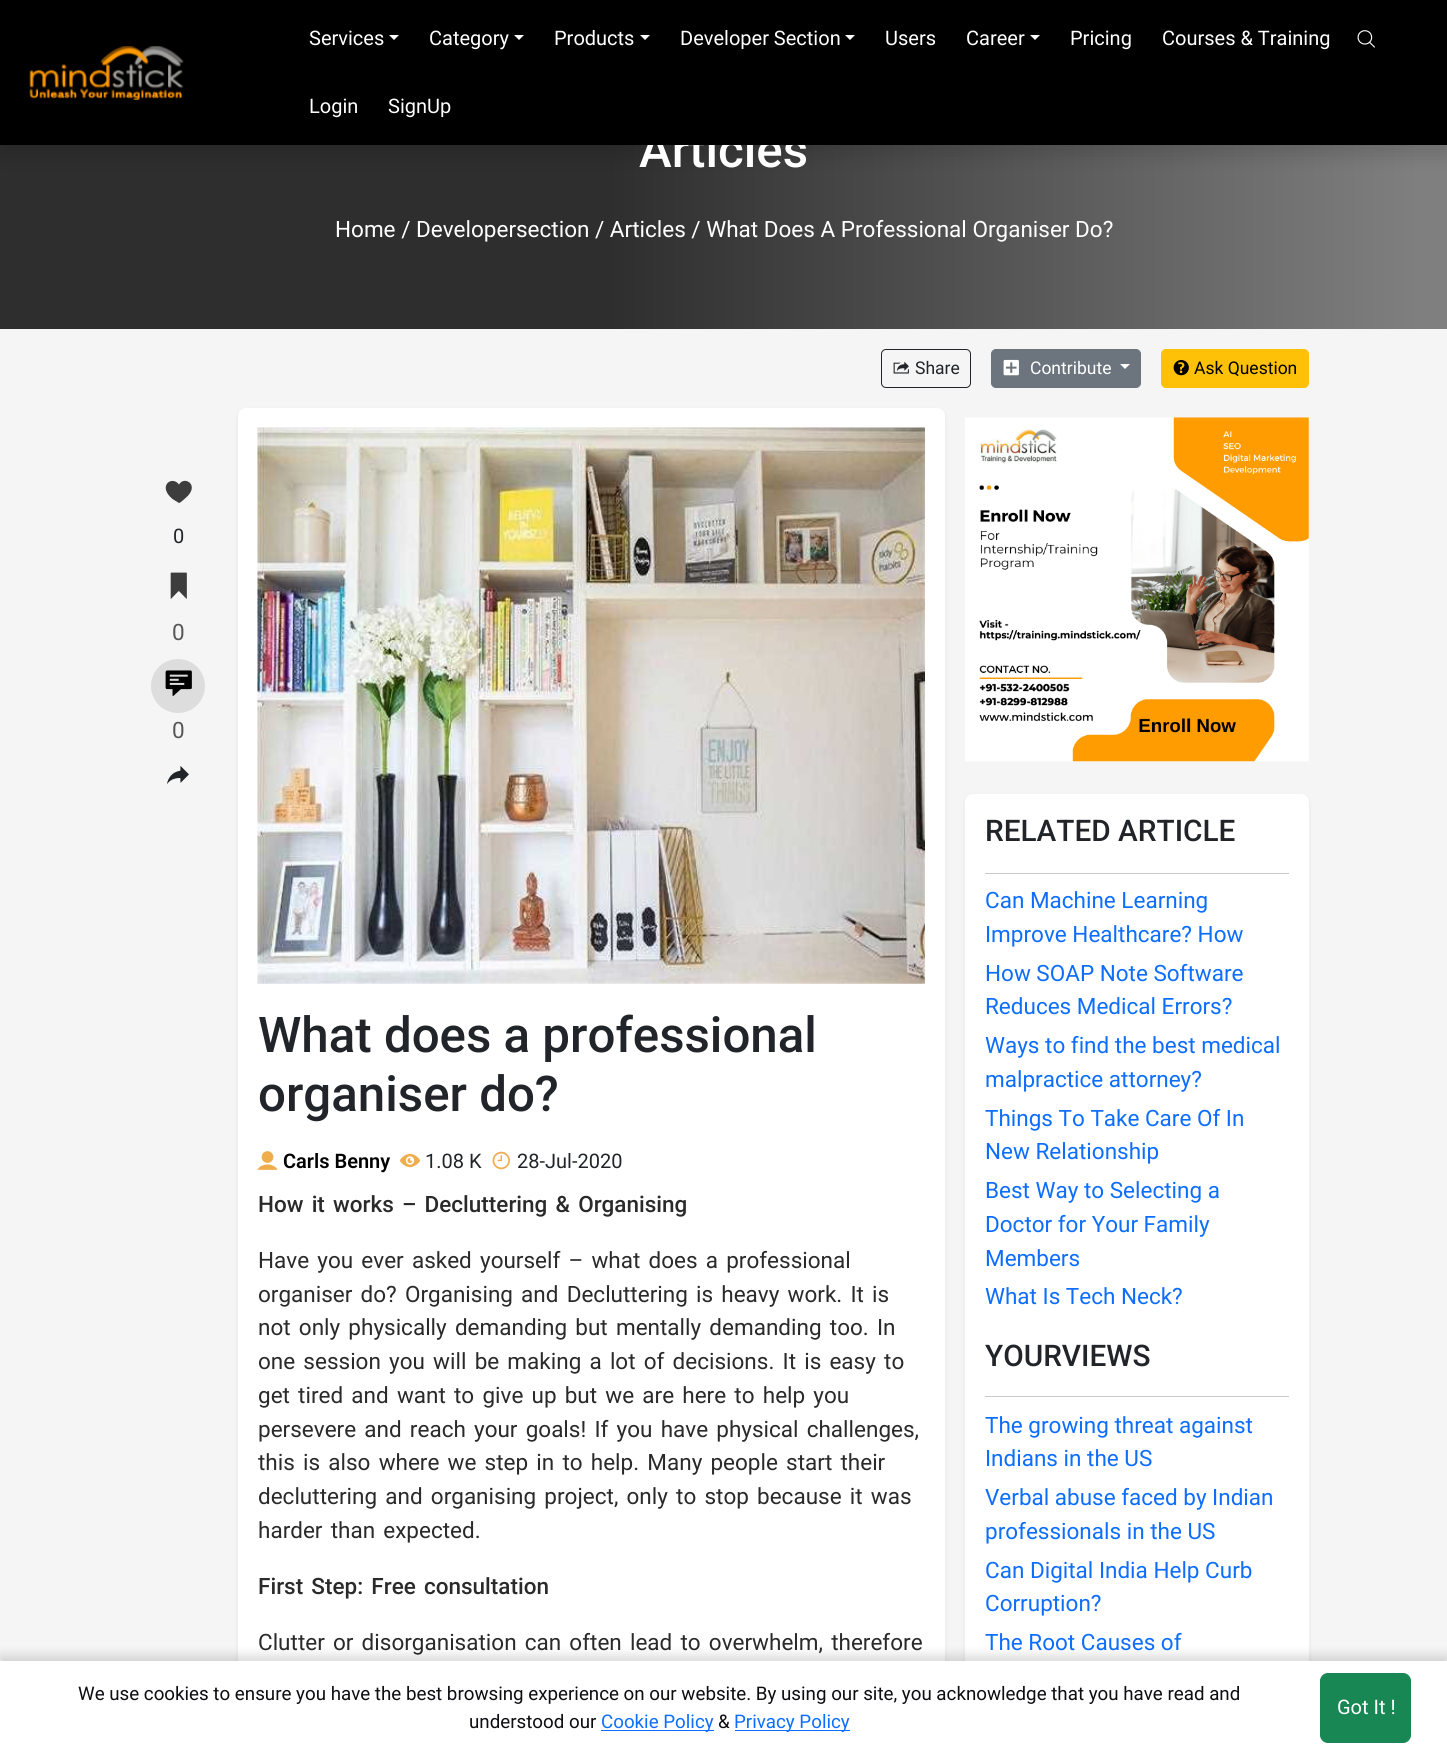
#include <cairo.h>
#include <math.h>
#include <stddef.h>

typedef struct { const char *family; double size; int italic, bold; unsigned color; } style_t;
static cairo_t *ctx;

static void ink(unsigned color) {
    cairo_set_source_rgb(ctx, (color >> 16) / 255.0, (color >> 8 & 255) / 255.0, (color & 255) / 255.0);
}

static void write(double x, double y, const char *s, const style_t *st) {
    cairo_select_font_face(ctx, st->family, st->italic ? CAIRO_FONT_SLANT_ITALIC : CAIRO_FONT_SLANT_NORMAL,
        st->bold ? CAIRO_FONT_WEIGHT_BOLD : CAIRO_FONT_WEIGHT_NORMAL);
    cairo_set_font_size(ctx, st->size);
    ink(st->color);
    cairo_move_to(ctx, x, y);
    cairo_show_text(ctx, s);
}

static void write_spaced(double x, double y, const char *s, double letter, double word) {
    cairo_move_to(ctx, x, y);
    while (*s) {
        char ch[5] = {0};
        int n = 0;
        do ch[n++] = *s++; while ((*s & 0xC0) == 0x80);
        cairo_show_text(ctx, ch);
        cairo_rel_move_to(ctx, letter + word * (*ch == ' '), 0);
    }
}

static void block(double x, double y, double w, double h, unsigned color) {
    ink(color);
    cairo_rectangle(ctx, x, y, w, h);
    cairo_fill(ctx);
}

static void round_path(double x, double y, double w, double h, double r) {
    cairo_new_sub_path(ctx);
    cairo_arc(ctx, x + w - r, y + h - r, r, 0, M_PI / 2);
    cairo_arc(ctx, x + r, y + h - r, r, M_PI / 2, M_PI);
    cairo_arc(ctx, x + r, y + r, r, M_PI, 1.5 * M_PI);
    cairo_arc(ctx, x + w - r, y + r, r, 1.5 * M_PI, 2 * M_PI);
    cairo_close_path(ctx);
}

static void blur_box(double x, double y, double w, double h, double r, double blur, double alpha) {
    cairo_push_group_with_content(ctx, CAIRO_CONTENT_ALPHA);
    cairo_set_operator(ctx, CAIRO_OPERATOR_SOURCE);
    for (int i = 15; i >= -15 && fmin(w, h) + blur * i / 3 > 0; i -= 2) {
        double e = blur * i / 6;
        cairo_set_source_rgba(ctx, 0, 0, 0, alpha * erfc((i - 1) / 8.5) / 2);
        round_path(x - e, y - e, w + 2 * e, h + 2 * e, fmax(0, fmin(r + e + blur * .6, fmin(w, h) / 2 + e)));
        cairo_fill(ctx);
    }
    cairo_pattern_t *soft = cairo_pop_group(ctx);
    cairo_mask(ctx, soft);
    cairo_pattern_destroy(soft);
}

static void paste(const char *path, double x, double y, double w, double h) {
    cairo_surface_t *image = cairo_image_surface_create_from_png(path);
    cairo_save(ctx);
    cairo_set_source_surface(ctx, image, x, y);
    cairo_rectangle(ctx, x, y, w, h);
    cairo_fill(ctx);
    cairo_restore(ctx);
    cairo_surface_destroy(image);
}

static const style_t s1 = {"Roboto Medium", 49.25, 0, 0, 0xffffff};
static const style_t s2 = {"Roboto", 20, 0, 0, 0xffffff};
static const style_t s3 = {"Roboto", 22.5, 0, 0, 0xffffff};
static const style_t s4 = {"Roboto", 17.5, 0, 0, 0x212529};
static const style_t s5 = {"Roboto", 17.5, 0, 0, 0xffffff};
static const style_t s6 = {"Roboto", 17.5, 0, 0, 0x000000};
static const style_t s7 = {"Roboto", 20, 0, 0, 0x212529};
static const style_t s8 = {"Roboto", 22.5, 0, 0, 0x575757};
static const style_t s9 = {"Roboto Medium", 49.25, 0, 0, 0x212529};
static const style_t s10 = {"Roboto SemiBold", 20, 0, 0, 0x000000};
static const style_t s11 = {"Roboto Medium", 29.75, 0, 0, 0x212529};
static const style_t s12 = {"Roboto", 22.5, 0, 0, 0x0d6efd};
static const style_t s13 = {"Roboto", 18.75, 0, 0, 0x0e0e12};
static const style_t s14 = {"Roboto", 18.75, 0, 0, 0x0d6efd};

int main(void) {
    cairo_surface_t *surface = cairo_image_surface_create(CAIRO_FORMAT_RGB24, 1447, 1753);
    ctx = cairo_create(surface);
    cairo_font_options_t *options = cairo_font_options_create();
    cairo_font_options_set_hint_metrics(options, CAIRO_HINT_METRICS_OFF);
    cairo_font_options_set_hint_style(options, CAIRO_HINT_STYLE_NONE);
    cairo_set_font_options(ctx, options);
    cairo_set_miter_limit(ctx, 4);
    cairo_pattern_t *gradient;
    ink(0xf5f5f5);
    cairo_paint(ctx);
    gradient = cairo_pattern_create_linear(0, 194, 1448, 194);
    cairo_pattern_add_color_stop_rgba(gradient, 0.42, 0.18, 0.18, 0.18, 1);
    cairo_pattern_add_color_stop_rgba(gradient, 0.98, 0.502, 0.498, 0.498, 1);
    cairo_set_source(ctx, gradient);
    cairo_pattern_destroy(gradient);
    cairo_rectangle(ctx, 0, 145, 1447, 184);
    cairo_fill(ctx);
    ink(0x000000);
    blur_box(0, 10, 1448, 145, 0, 10, 0.15);
    write(639, 167, "Articles", &s1);
    block(0, 0, 1447, 145, 0x000000);
    paste("pic1.png", 29, 46, 155, 54);
    write(309, 45, "Services", &s2);
    cairo_new_path(ctx);
    cairo_move_to(ctx, 389, 35);
    cairo_line_to(ctx, 399, 35);
    cairo_line_to(ctx, 394, 40);
    cairo_close_path(ctx);
    cairo_fill(ctx);
    write(429, 45, "Category", &s2);
    cairo_new_path(ctx);
    cairo_move_to(ctx, 514, 35);
    cairo_line_to(ctx, 524, 35);
    cairo_line_to(ctx, 519, 40);
    cairo_close_path(ctx);
    cairo_fill(ctx);
    write(554, 45, "Products", &s2);
    cairo_new_path(ctx);
    cairo_move_to(ctx, 640, 35);
    cairo_line_to(ctx, 650, 35);
    cairo_line_to(ctx, 645, 40);
    cairo_close_path(ctx);
    cairo_fill(ctx);
    write(680, 45, "Developer Section", &s2);
    cairo_new_path(ctx);
    cairo_move_to(ctx, 845, 35);
    cairo_line_to(ctx, 855, 35);
    cairo_line_to(ctx, 850, 40);
    cairo_close_path(ctx);
    cairo_fill(ctx);
    write(885, 45, "Users", &s2);
    write(966, 45, "Career", &s2);
    cairo_new_path(ctx);
    cairo_move_to(ctx, 1030, 35);
    cairo_line_to(ctx, 1040, 35);
    cairo_line_to(ctx, 1035, 40);
    cairo_close_path(ctx);
    cairo_fill(ctx);
    write(1070, 45, "Pricing", &s2);
    write(1162, 45, "Courses & Training", &s2);
    paste("pic2.png", 1357, 30, 18, 18);
    write(309, 113, "Login", &s2);
    write(388, 113, "SignUp", &s2);
    write(335, 237, "Home / Developersection / Articles / What Does A Professional Organiser Do?", &s3);
    round_path(881.5, 349.5, 89, 38, 4.5);
    ink(0x212529);
    cairo_set_line_width(ctx, 1);
    cairo_stroke(ctx);
    paste("pic3.png", 893, 361, 16, 13);
    write(915, 374, "Share", &s4);
    ink(0x6c757d);
    round_path(991.5, 349.5, 149, 38, 4.5);
    cairo_fill_preserve(ctx);
    cairo_stroke(ctx);
    paste("pic4.png", 1003, 359, 16, 17);
    write(1030, 374, "Contribute", &s5);
    cairo_new_path(ctx);
    cairo_move_to(ctx, 1120, 364);
    cairo_line_to(ctx, 1130, 364);
    cairo_line_to(ctx, 1125, 369);
    cairo_close_path(ctx);
    cairo_fill(ctx);
    ink(0xffc107);
    round_path(1161.5, 349.5, 147, 38, 4.5);
    cairo_fill_preserve(ctx);
    cairo_stroke(ctx);
    paste("pic5.png", 1173, 360, 16, 16);
    write(1194, 374, "Ask Question", &s6);
    ink(0x3d3d3d);
    cairo_new_path(ctx);
    cairo_move_to(ctx, 179, 484.5);
    cairo_curve_to(ctx, 184.5, 475, 201, 485.5, 185, 498.5);
    cairo_curve_to(ctx, 184.5, 499, 180, 503, 179, 503);
    cairo_line_to(ctx, 172.5, 499);
    cairo_curve_to(ctx, 157, 486, 172, 475, 179, 484.5);
    cairo_close_path(ctx);
    cairo_fill(ctx);
    write(173, 543, "0", &s7);
    paste("pic6.png", 170, 572, 17, 27);
    write(172, 640, "0", &s8);
    ink(0xdddddd);
    cairo_new_path(ctx);
    cairo_arc(ctx, 178, 686, 27, 0, 2 * M_PI);
    cairo_fill(ctx);
    paste("pic7.png", 165, 670, 27, 26);
    write(172, 738, "0", &s8);
    paste("pic8.png", 167, 766, 22, 18);
    ink(0x000000);
    blur_box(238, 410, 707, 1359, 8, 2.5, 0.07);
    ink(0xffffff);
    round_path(238, 408, 707, 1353, 8);
    cairo_fill(ctx);
    paste("pic9.png", 257, 427, 668, 557);
    write(258, 1052, "What does a professional", &s9);
    write(258, 1111, "organiser do?", &s9);
    paste("pic10.png", 257, 1151, 21, 19);
    write(283, 1168, "Carls Benny", &s10);
    paste("pic11.png", 400, 1153, 20, 15);
    write(425, 1168, "1.08 K", &s7);
    paste("pic12.png", 492, 1151, 18, 19);
    write(517, 1168, "28-Jul-2020", &s7);
    cairo_select_font_face(ctx, "Roboto Medium", CAIRO_FONT_SLANT_NORMAL, CAIRO_FONT_WEIGHT_NORMAL);
    cairo_set_font_size(ctx, 22.5);
    ink(0x2a2a2a);
    write_spaced(258, 1212, "How it works – Decluttering & Organising", 0, 2.6);
    cairo_select_font_face(ctx, "Roboto", CAIRO_FONT_SLANT_NORMAL, CAIRO_FONT_WEIGHT_NORMAL);
    write_spaced(258, 1268, "Have you ever asked yourself – what does a professional", 0, 2.6);
    write_spaced(258, 1302, "organiser do? Organising and Decluttering is heavy work. It is", 0, 2.6);
    write_spaced(258, 1335, "not only physically demanding but mentally demanding too. In", 0, 2.6);
    write_spaced(258, 1369, "one session you will be making a lot of decisions. It is easy to", 0, 2.6);
    write_spaced(258, 1403, "get tired and want to give up but we are here to help you", 0, 2.6);
    write_spaced(258, 1437, "persevere and reach your goals! If you have physical challenges,", 0, 2.6);
    write_spaced(258, 1470, "this is also where we step in to help. Many people start their", 0, 2.6);
    write_spaced(258, 1504, "decluttering and organising project, only to stop because it was", 0, 2.6);
    write_spaced(258, 1538, "harder than expected.", 0, 2.6);
    cairo_select_font_face(ctx, "Roboto Medium", CAIRO_FONT_SLANT_NORMAL, CAIRO_FONT_WEIGHT_NORMAL);
    write_spaced(258, 1594, "First Step: Free consultation", 0, 2.6);
    cairo_select_font_face(ctx, "Roboto", CAIRO_FONT_SLANT_NORMAL, CAIRO_FONT_WEIGHT_NORMAL);
    write_spaced(258, 1650, "Clutter or disorganisation can often lead to overwhelm, therefore", 0, 2.6);
    paste("pic13.png", 965, 417, 344, 345);
    ink(0x000000);
    blur_box(965, 796, 344, 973, 8, 2.5, 0.07);
    ink(0xffffff);
    round_path(965, 794, 344, 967, 8);
    cairo_fill(ctx);
    write(985, 841, "RELATED ARTICLE", &s11);
    block(985, 873, 304, 1, 0xc8c9ca);
    write(985, 908, "Can Machine Learning", &s12);
    write(985, 942, "Improve Healthcare? How", &s12);
    write(985, 981, "How SOAP Note Software", &s12);
    write(985, 1014, "Reduces Medical Errors?", &s12);
    write(985, 1053, "Ways to find the best medical", &s12);
    write(985, 1087, "malpractice attorney?", &s12);
    write(985, 1126, "Things To Take Care Of In", &s12);
    write(985, 1159, "New Relationship", &s12);
    write(985, 1198, "Best Way to Selecting a", &s12);
    write(985, 1232, "Doctor for Your Family", &s12);
    write(985, 1266, "Members", &s12);
    write(985, 1304, "What Is Tech Neck?", &s12);
    write(985, 1366, "YOURVIEWS", &s11);
    block(985, 1396, 304, 1, 0xc8c9ca);
    write(985, 1433, "The growing threat against", &s12);
    write(985, 1466, "Indians in the US", &s12);
    write(985, 1505, "Verbal abuse faced by Indian", &s12);
    write(985, 1539, "professionals in the US", &s12);
    write(985, 1578, "Can Digital India Help Curb", &s12);
    write(985, 1611, "Corruption?", &s12);
    write(985, 1650, "The Root Causes of", &s12);
    ink(0x000000);
    blur_box(0, 1655, 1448, 93, 0, 5, 0.14);
    block(0, 1661, 1447, 92, 0xffffff);
    write(78, 1700, "We use cookies to ensure you have the best browsing experience on our website. By using our site, you acknowledge that you have read and", &s13);
    write(469, 1728, "understood our", &s13);
    block(601, 1730, 113, 1, 0x0d6efd);
    write(601, 1728, "Cookie Policy", &s14);
    write(718, 1728, "&", &s13);
    block(735, 1730, 115, 1, 0x0d6efd);
    write(734, 1728, "Privacy Policy", &s14);
    ink(0x198754);
    round_path(1320.5, 1673.5, 90, 69, 7.5);
    cairo_fill_preserve(ctx);
    cairo_stroke(ctx);
    write(1337, 1714, "Got It !", &s2);
    cairo_surface_write_to_png(surface, "screenshot.png");
    cairo_font_options_destroy(options);
    cairo_destroy(ctx);
    cairo_surface_destroy(surface);
    return 0;
}
